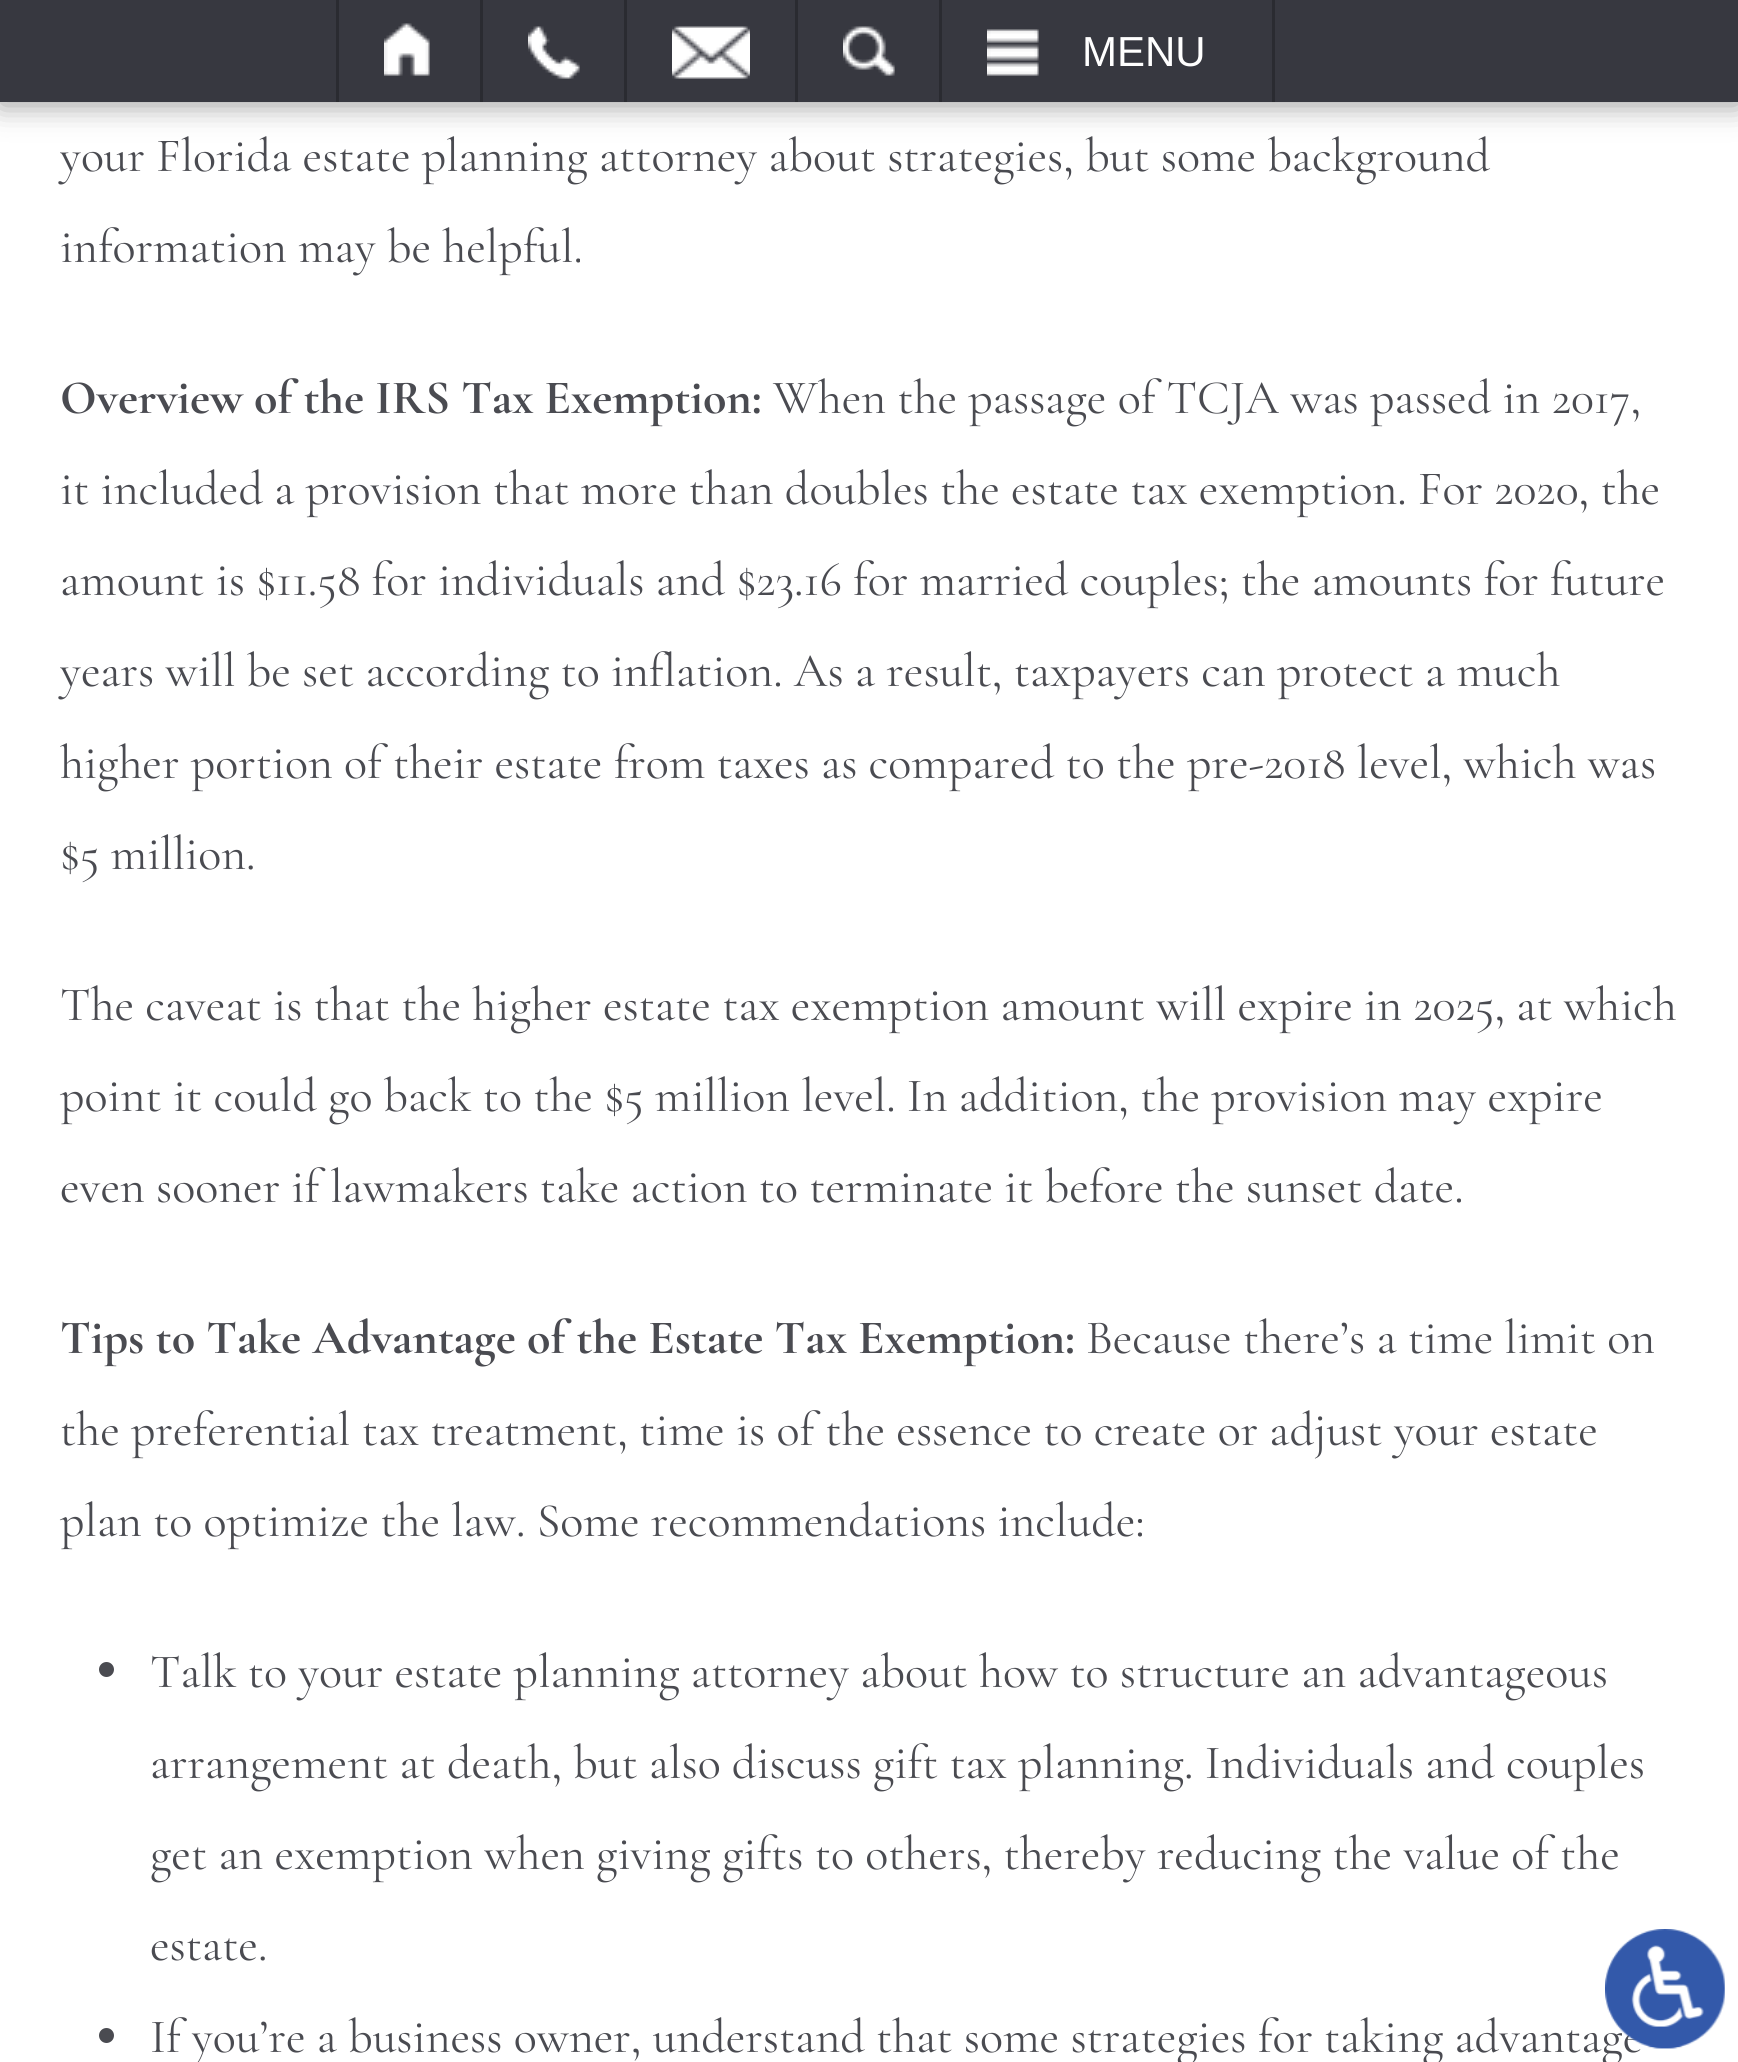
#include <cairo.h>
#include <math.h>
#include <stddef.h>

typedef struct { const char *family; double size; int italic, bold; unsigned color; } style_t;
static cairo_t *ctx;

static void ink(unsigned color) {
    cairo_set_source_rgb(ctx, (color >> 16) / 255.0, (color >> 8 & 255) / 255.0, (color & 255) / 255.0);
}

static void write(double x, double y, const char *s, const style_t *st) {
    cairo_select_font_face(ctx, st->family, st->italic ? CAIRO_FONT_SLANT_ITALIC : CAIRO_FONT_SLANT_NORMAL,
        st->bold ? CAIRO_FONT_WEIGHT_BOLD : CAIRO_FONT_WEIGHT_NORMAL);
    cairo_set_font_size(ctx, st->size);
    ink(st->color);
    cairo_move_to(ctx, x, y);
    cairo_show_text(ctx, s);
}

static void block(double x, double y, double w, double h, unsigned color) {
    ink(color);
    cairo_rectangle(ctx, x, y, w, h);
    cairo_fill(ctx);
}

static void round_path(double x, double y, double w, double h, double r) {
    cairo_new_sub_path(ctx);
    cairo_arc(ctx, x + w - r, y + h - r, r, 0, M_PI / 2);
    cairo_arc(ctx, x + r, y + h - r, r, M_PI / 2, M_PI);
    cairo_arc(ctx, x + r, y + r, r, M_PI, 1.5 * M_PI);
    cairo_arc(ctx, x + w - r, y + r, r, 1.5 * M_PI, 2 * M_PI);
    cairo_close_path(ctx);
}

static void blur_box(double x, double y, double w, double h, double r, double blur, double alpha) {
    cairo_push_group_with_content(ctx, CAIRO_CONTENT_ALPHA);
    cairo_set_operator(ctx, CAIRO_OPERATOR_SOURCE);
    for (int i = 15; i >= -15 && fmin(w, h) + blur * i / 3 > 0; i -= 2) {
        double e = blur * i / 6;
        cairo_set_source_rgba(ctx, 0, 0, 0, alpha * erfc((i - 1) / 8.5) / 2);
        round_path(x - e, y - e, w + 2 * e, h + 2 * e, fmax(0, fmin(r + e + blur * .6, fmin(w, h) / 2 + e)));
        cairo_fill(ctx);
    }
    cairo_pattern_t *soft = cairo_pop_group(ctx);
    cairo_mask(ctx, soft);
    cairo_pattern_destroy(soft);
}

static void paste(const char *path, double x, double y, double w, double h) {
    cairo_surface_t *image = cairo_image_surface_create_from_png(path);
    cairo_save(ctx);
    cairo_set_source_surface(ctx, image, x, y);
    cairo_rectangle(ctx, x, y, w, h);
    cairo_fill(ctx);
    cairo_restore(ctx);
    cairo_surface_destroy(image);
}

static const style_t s1 = {"Liberation Sans", 42, 0, 0, 0xffffff};
static const style_t s2 = {"Cormorant Garamond", 48, 0, 0, 0x4a4b51};
static const style_t s3 = {"Cormorant Garamond", 48, 0, 1, 0x4a4b51};

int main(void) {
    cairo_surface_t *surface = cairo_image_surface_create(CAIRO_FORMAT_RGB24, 1738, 2062);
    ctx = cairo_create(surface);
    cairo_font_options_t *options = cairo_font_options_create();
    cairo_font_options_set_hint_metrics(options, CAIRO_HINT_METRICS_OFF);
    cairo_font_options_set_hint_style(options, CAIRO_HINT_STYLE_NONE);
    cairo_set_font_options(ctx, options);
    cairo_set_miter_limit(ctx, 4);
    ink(0xffffff);
    cairo_paint(ctx);
    ink(0x000000);
    blur_box(0, 3, 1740, 102, 0, 15, 0.4);
    block(0, 0, 1738, 102, 0x373840);
    block(480, 0, 3, 102, 0x2a2b31);
    block(336, 0, 3, 102, 0x2a2b31);
    paste("pic1.png", 384, 23, 46, 53);
    block(624, 0, 3, 102, 0x2a2b31);
    paste("pic2.png", 528, 26, 52, 53);
    block(795, 0, 3, 102, 0x2a2b31);
    paste("pic3.png", 672, 26, 78, 53);
    block(939, 0, 3, 102, 0x2a2b31);
    paste("pic4.png", 843, 26, 52, 50);
    block(1272, 0, 3, 102, 0x2a2b31);
    paste("pic5.png", 987, 29, 52, 47);
    write(1082, 66, "MENU", &s1);
    write(60, 171, "your Florida estate planning attorney about strategies, but some background", &s2);
    write(60, 262, "information may be helpful.", &s2);
    write(60, 413, "Overview of the IRS Tax Exemption:", &s3);
    write(773, 413, "When the passage of TCJA was passed in 2017,", &s2);
    write(60, 504, "it included a provision that more than doubles the estate tax exemption. For 2020, the", &s2);
    write(60, 595, "amount is $11.58 for individuals and $23.16 for married couples; the amounts for future", &s2);
    write(60, 686, "years will be set according to inflation. As a result, taxpayers can protect a much", &s2);
    write(60, 778, "higher portion of their estate from taxes as compared to the pre-2018 level, which was", &s2);
    write(60, 869, "$5 million.", &s2);
    write(60, 1020, "The caveat is that the higher estate tax exemption amount will expire in 2025, at which", &s2);
    write(60, 1111, "point it could go back to the $5 million level. In addition, the provision may expire", &s2);
    write(60, 1202, "even sooner if lawmakers take action to terminate it before the sunset date.", &s2);
    write(60, 1353, "Tips to Take Advantage of the Estate Tax Exemption:", &s3);
    write(1086, 1353, "Because there’s a time limit on", &s2);
    write(60, 1445, "the preferential tax treatment, time is of the essence to create or adjust your estate", &s2);
    write(60, 1536, "plan to optimize the law. Some recommendations include:", &s2);
    cairo_new_path(ctx);
    cairo_arc(ctx, 106.5, 1669.5, 7.5, 0, 2 * M_PI);
    cairo_fill(ctx);
    write(150, 1687, "Talk to your estate planning attorney about how to structure an advantageous", &s2);
    write(150, 1778, "arrangement at death, but also discuss gift tax planning. Individuals and couples", &s2);
    write(150, 1869, "get an exemption when giving gifts to others, thereby reducing the value of the", &s2);
    write(150, 1960, "estate.", &s2);
    cairo_new_path(ctx);
    cairo_arc(ctx, 106.5, 2035.5, 7.5, 0, 2 * M_PI);
    cairo_fill(ctx);
    write(150, 2052, "If you’re a business owner, understand that some strategies for taking advantage", &s2);
    paste("pic6.png", 1605, 1929, 120, 120);
    cairo_surface_write_to_png(surface, "screenshot.png");
    cairo_font_options_destroy(options);
    cairo_destroy(ctx);
    cairo_surface_destroy(surface);
    return 0;
}
